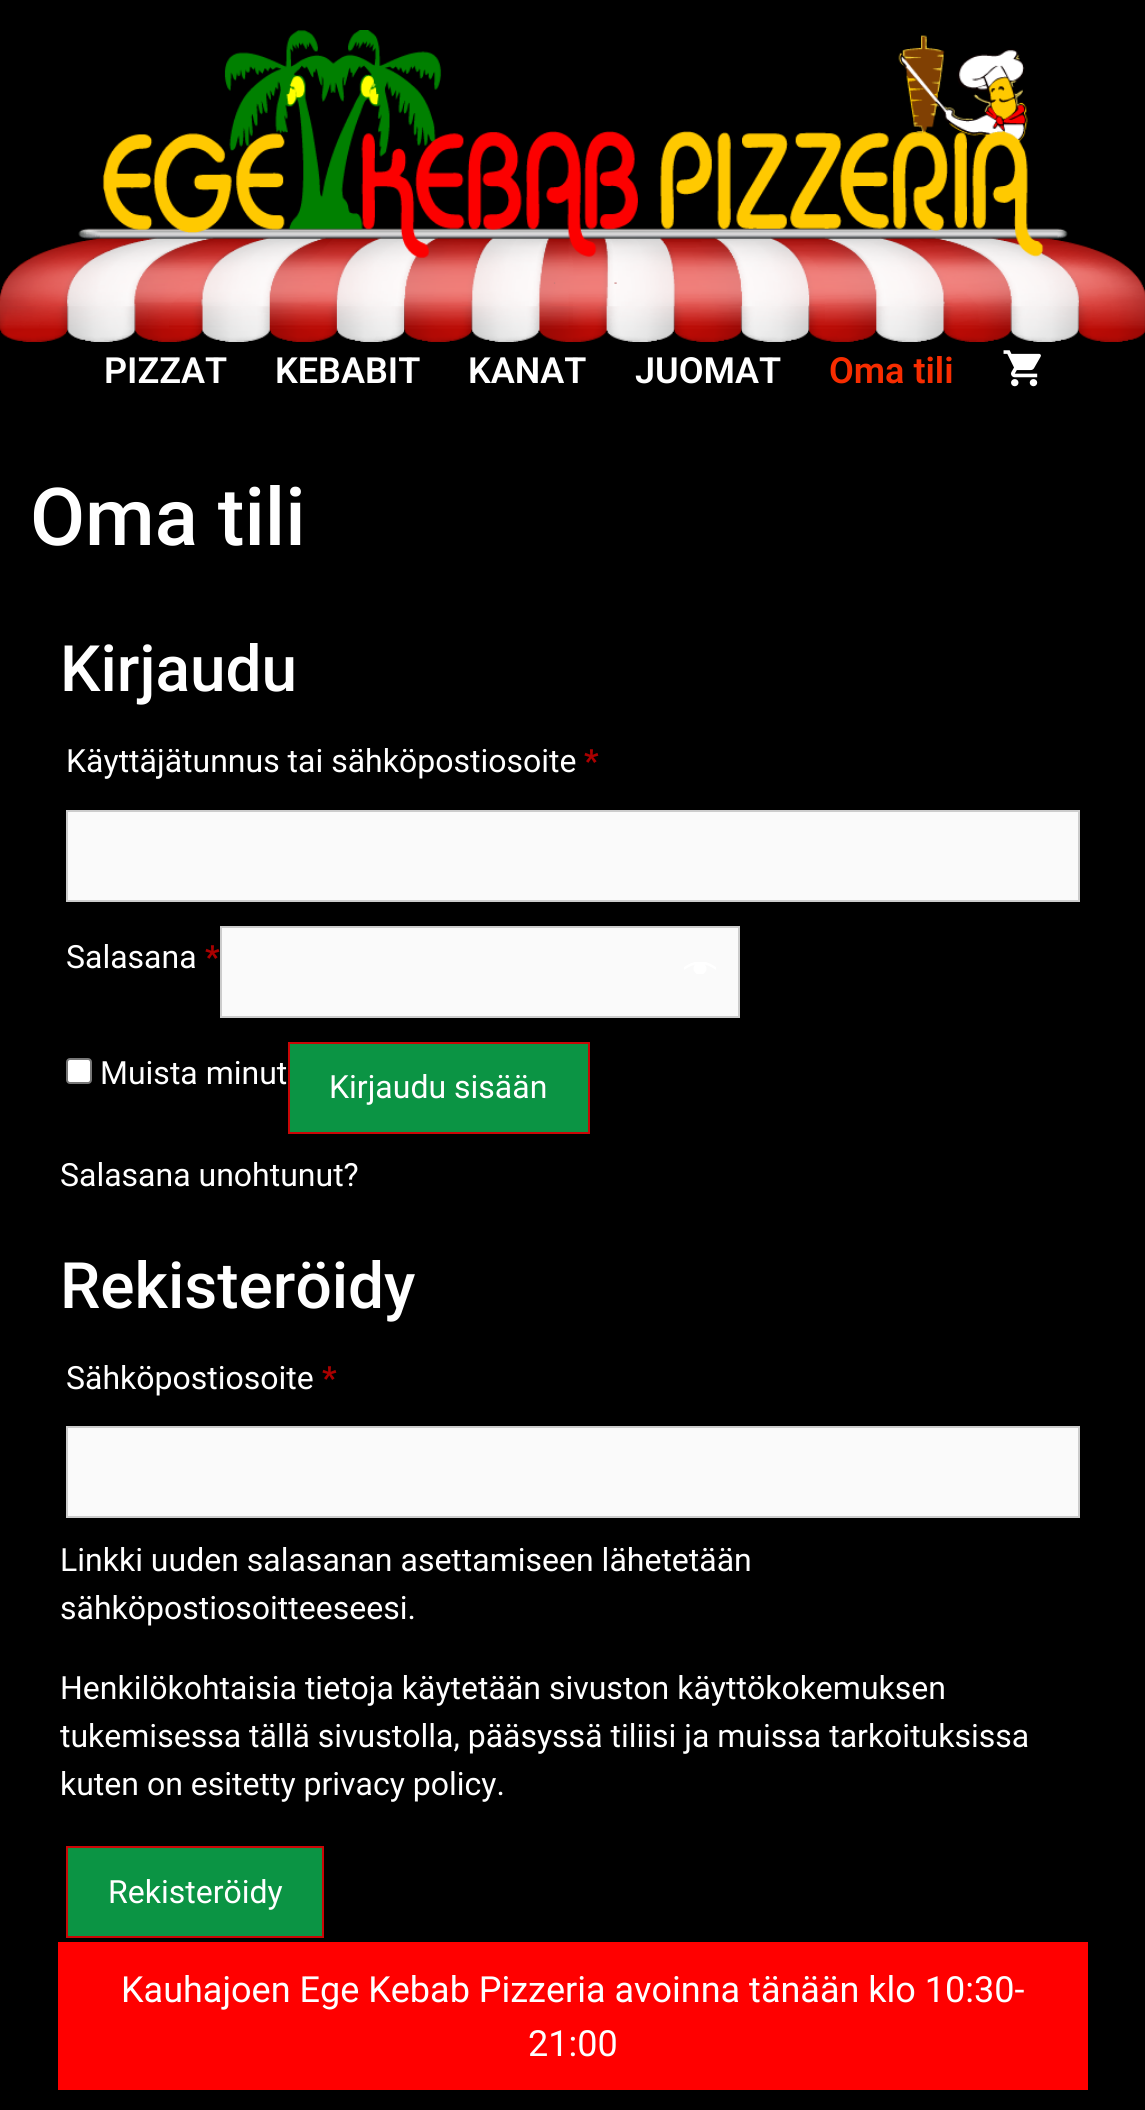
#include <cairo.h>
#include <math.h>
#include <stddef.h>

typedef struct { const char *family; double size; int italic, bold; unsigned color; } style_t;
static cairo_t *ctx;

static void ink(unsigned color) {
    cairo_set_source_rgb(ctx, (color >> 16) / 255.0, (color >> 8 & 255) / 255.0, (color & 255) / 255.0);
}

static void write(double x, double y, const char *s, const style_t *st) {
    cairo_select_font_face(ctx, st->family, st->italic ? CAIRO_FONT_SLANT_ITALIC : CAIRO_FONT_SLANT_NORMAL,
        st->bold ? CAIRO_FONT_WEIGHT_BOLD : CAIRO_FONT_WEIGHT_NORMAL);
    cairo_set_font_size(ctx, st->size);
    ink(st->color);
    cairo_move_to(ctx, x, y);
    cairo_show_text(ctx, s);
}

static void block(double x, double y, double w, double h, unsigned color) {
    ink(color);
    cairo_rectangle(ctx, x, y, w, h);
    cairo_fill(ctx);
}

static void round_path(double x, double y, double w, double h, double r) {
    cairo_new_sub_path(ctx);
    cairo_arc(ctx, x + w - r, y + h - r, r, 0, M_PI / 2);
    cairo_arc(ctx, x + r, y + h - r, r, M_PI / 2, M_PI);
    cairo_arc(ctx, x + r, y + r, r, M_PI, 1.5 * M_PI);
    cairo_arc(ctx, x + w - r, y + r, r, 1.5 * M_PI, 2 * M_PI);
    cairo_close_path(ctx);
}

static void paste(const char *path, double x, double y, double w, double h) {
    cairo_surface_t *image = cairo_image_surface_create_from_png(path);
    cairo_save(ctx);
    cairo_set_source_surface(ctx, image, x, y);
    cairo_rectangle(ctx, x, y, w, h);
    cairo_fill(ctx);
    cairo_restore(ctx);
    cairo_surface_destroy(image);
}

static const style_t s1 = {"Roboto SemiBold", 36, 0, 0, 0xffffff};
static const style_t s2 = {"Roboto SemiBold", 36, 0, 0, 0xf82d00};
static const style_t s3 = {"Roboto Medium", 80, 0, 0, 0xffffff};
static const style_t s4 = {"Roboto Medium", 64, 0, 0, 0xffffff};
static const style_t s5 = {"Roboto", 32, 0, 0, 0xffffff};
static const style_t s6 = {"Roboto", 32, 0, 1, 0xaa0000};
static const style_t s7 = {"Roboto", 36, 0, 0, 0xffffff};

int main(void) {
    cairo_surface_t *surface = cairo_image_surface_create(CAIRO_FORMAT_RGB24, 1145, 2110);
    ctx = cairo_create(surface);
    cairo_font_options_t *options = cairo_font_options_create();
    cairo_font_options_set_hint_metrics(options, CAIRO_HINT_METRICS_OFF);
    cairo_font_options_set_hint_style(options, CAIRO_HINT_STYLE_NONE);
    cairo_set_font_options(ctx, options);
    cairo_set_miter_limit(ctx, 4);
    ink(0x000000);
    cairo_paint(ctx);
    paste("pic1.png", 0, 30, 1145, 312);
    write(104, 383, "PIZZAT", &s1);
    write(275, 383, "KEBABIT", &s1);
    write(468, 383, "KANAT", &s1);
    write(635, 383, "JUOMAT", &s1);
    write(829, 383, "Oma tili", &s2);
    paste("pic2.png", 1003, 350, 38, 37);
    write(30, 545, "Oma tili", &s3);
    write(60, 691, "Kirjaudu", &s4);
    write(66, 772, "Käyttäjätunnus tai sähköpostiosoite", &s5);
    write(584, 772, "*", &s6);
    ink(0xfafafa);
    cairo_rectangle(ctx, 67, 811, 1012, 90);
    cairo_fill_preserve(ctx);
    ink(0xcccccc);
    cairo_stroke(ctx);
    write(66, 968, "Salasana", &s5);
    write(205, 968, "*", &s6);
    ink(0xfafafa);
    cairo_rectangle(ctx, 221, 927, 518, 90);
    cairo_fill_preserve(ctx);
    ink(0xcccccc);
    cairo_stroke(ctx);
    paste("pic3.png", 684, 962, 32, 12);
    ink(0xffffff);
    round_path(67, 1059, 24, 24, 3);
    cairo_fill_preserve(ctx);
    ink(0x767676);
    cairo_stroke(ctx);
    write(100, 1084, "Muista minut", &s5);
    ink(0x0b9444);
    cairo_rectangle(ctx, 289, 1043, 300, 90);
    cairo_fill_preserve(ctx);
    ink(0xca0606);
    cairo_stroke(ctx);
    write(329, 1098, "Kirjaudu sisään", &s5);
    write(60, 1186, "Salasana unohtunut?", &s5);
    write(60, 1308, "Rekisteröidy", &s4);
    write(66, 1389, "Sähköpostiosoite", &s5);
    write(322, 1389, "*", &s6);
    ink(0xfafafa);
    cairo_rectangle(ctx, 67, 1427, 1012, 90);
    cairo_fill_preserve(ctx);
    ink(0xcccccc);
    cairo_stroke(ctx);
    write(60, 1571, "Linkki uuden salasanan asettamiseen lähetetään", &s5);
    write(60, 1619, "sähköpostiosoitteeseesi.", &s5);
    write(60, 1699, "Henkilökohtaisia tietoja käytetään sivuston käyttökokemuksen", &s5);
    write(60, 1747, "tukemisessa tällä sivustolla, pääsyssä tiliisi ja muissa tarkoituksissa", &s5);
    write(60, 1795, "kuten on esitetty privacy policy.", &s5);
    ink(0x0b9444);
    cairo_rectangle(ctx, 67, 1847, 256, 90);
    cairo_fill_preserve(ctx);
    ink(0xca0606);
    cairo_stroke(ctx);
    write(108, 1903, "Rekisteröidy", &s5);
    block(58, 1942, 1030, 148, 0xff0000);
    write(121, 2002, "Kauhajoen Ege Kebab Pizzeria avoinna tänään klo 10:30-", &s7);
    write(528, 2056, "21:00", &s7);
    cairo_surface_write_to_png(surface, "screenshot.png");
    cairo_font_options_destroy(options);
    cairo_destroy(ctx);
    cairo_surface_destroy(surface);
    return 0;
}
